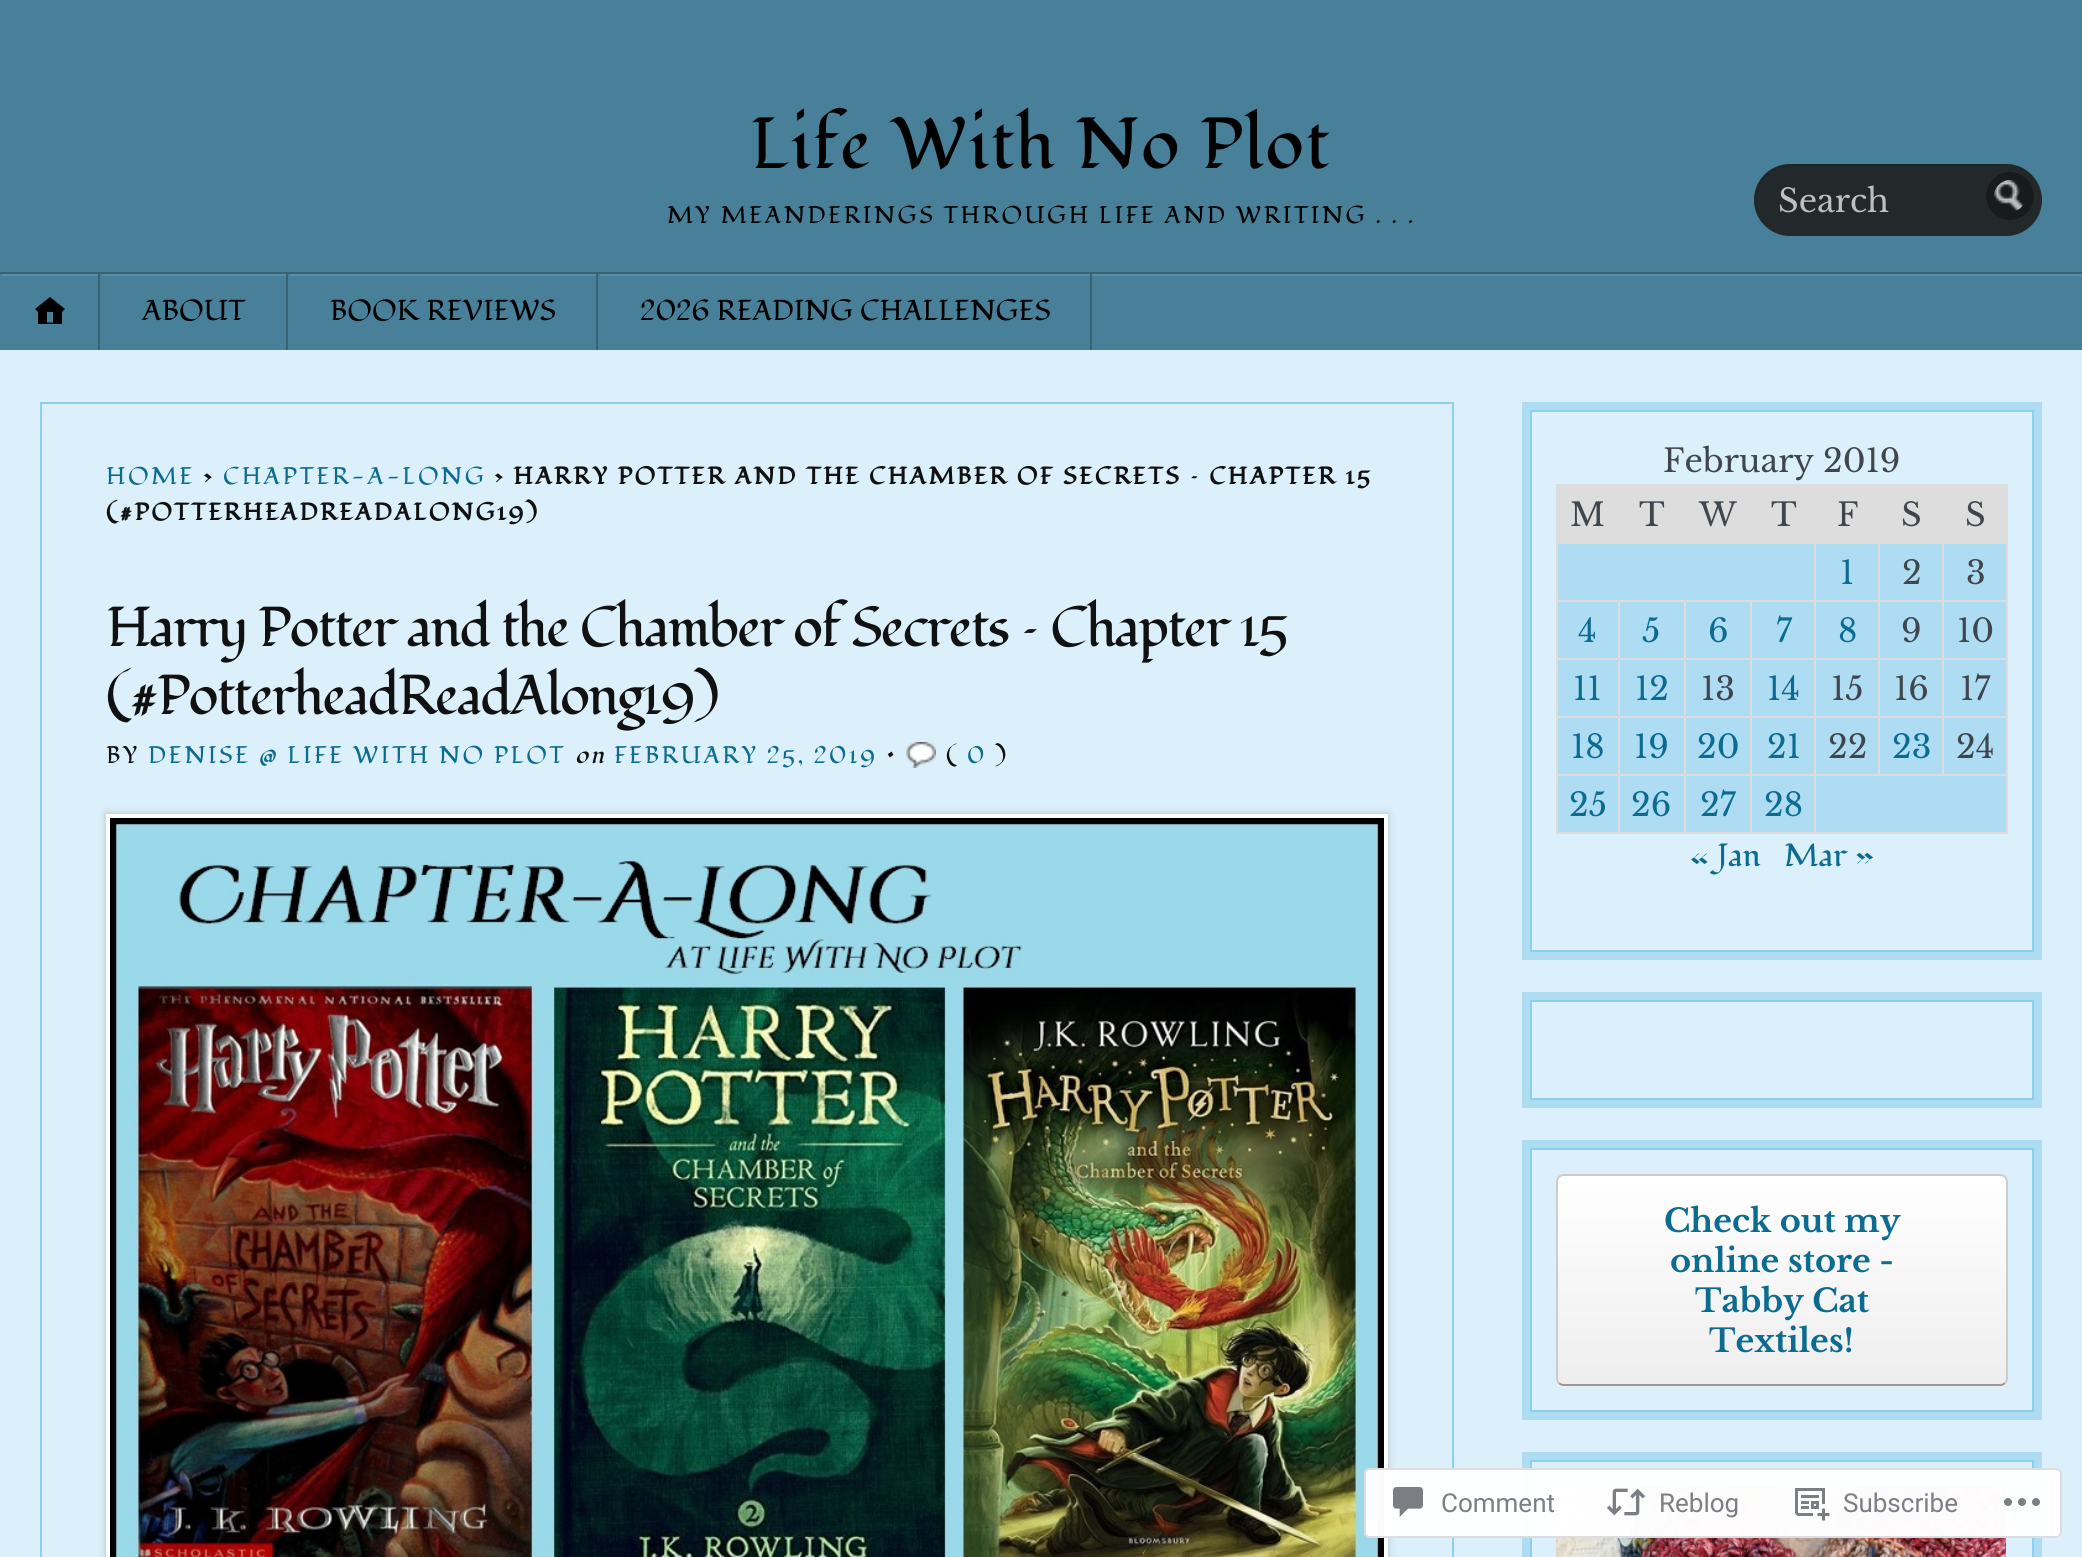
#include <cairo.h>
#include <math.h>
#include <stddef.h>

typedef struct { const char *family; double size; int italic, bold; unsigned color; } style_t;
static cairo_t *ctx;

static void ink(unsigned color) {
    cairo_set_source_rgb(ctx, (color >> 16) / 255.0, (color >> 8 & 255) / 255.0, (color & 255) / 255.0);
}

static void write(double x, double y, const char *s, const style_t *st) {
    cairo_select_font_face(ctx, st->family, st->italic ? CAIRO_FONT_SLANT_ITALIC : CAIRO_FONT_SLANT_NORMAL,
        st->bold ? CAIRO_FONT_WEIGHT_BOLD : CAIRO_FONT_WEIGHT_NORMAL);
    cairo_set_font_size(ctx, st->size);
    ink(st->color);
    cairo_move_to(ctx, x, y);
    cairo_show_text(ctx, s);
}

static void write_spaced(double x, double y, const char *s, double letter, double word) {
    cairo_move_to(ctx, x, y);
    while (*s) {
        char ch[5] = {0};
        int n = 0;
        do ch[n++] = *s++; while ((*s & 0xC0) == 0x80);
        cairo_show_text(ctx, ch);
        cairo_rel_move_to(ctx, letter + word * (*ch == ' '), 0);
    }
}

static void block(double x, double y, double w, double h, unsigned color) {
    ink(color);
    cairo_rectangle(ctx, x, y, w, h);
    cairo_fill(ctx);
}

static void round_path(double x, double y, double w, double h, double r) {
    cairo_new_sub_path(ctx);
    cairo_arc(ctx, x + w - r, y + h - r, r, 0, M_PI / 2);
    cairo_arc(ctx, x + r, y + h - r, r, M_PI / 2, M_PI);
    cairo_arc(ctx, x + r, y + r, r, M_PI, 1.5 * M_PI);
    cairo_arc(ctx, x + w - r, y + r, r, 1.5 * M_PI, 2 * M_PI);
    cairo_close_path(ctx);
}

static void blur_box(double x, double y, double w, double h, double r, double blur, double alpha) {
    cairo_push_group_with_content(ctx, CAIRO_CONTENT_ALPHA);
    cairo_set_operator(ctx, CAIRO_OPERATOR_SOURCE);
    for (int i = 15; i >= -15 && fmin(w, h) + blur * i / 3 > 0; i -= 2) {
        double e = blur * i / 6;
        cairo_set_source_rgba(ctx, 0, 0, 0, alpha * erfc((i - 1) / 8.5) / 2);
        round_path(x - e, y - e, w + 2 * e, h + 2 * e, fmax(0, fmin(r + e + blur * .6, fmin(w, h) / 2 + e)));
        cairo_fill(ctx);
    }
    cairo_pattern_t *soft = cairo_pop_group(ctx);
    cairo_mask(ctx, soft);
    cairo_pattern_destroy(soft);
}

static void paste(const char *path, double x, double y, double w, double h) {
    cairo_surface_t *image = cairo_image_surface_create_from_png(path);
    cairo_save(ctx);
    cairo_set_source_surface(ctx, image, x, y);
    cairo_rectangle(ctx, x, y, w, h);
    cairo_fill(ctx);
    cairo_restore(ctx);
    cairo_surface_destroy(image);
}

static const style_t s1 = {"Libre Baskerville", 32, 0, 0, 0xbfbfbf};
static const style_t s2 = {"Fondamento", 28.75, 0, 0, 0x000000};
static const style_t s3 = {"Libre Baskerville", 32, 0, 0, 0x40464d};
static const style_t s4 = {"Libre Baskerville", 32, 0, 0, 0x0c6b91};
static const style_t s5 = {"Fondamento", 32, 0, 0, 0x0c6b91};
static const style_t s6 = {"Libre Baskerville", 32, 0, 1, 0x0c6b91};
static const style_t s7 = {"Roboto", 26, 0, 0, 0x7b7f84};

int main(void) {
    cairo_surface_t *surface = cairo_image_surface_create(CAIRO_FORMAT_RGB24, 2082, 1557);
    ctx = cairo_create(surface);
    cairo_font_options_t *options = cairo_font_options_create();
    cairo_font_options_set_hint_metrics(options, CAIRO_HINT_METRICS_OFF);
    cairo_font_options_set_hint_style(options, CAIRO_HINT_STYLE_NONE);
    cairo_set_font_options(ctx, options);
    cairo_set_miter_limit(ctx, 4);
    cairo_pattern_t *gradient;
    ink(0x478098);
    cairo_paint(ctx);
    cairo_select_font_face(ctx, "Fondamento", CAIRO_FONT_SLANT_NORMAL, CAIRO_FONT_WEIGHT_NORMAL);
    cairo_set_font_size(ctx, 72);
    ink(0x000000);
    write_spaced(750, 168, "Life With No Plot", 1.4, 0);
    cairo_set_font_size(ctx, 24);
    write_spaced(667, 223, "MY MEANDERINGS THROUGH LIFE AND WRITING . . .", 2.4, 0);
    ink(0x23292b);
    round_path(1754, 164, 288, 72, 36);
    cairo_fill(ctx);
    cairo_set_source_rgba(ctx, 0, 0, 0, 0.1);
    cairo_new_path(ctx);
    cairo_move_to(ctx, 1792, 166);
    cairo_line_to(ctx, 2008, 166);
    cairo_curve_to(ctx, 2017, 166, 2026, 169, 2032, 175);
    cairo_curve_to(ctx, 2025, 168, 2016, 164, 2006, 164);
    cairo_line_to(ctx, 1790, 164);
    cairo_curve_to(ctx, 1770, 164, 1754, 180, 1754, 200);
    cairo_curve_to(ctx, 1754, 210, 1758, 219, 1765, 226);
    cairo_curve_to(ctx, 1745, 203, 1761, 166, 1792, 166);
    cairo_close_path(ctx);
    cairo_fill(ctx);
    write(1778, 212, "Search", &s1);
    ink(0x171b1c);
    cairo_new_path(ctx);
    cairo_arc(ctx, 2010, 196, 24, 0, 2 * M_PI);
    cairo_fill(ctx);
    paste("pic1.png", 1994, 180, 30, 31);
    cairo_save(ctx);
    cairo_rectangle(ctx, 0, 274, 2082, 76);
    cairo_clip(ctx);
    ink(0x598da2);
    cairo_set_fill_rule(ctx, CAIRO_FILL_RULE_EVEN_ODD);
    cairo_new_path(ctx);
    cairo_move_to(ctx, -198, 76);
    cairo_line_to(ctx, 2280, 76);
    cairo_line_to(ctx, 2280, 548);
    cairo_line_to(ctx, -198, 548);
    cairo_close_path(ctx);
    cairo_move_to(ctx, 0, 276);
    cairo_line_to(ctx, 2082, 276);
    cairo_curve_to(ctx, 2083, 276, 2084, 277, 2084, 278);
    cairo_line_to(ctx, 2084, 354);
    cairo_curve_to(ctx, 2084, 355, 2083, 356, 2082, 356);
    cairo_line_to(ctx, 0, 356);
    cairo_curve_to(ctx, -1, 356, -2, 355, -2, 354);
    cairo_line_to(ctx, -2, 278);
    cairo_curve_to(ctx, -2, 277, -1, 276, 0, 276);
    cairo_close_path(ctx);
    cairo_fill(ctx);
    cairo_restore(ctx);
    block(0, 272, 2082, 2, 0x376375);
    block(98, 274, 2, 76, 0x376375);
    block(0, 274, 2, 2, 0x478098);
    paste("pic2.png", 35, 297, 30, 27);
    block(286, 274, 2, 76, 0x376375);
    block(100, 274, 2, 2, 0x478098);
    write(142, 320, "ABOUT", &s2);
    block(596, 274, 2, 76, 0x376375);
    block(288, 274, 2, 2, 0x478098);
    write(330, 320, "BOOK REVIEWS", &s2);
    block(1090, 274, 2, 76, 0x376375);
    block(598, 274, 2, 2, 0x478098);
    write(640, 320, "2026 READING CHALLENGES", &s2);
    block(0, 350, 2082, 1207, 0xdbf0fa);
    cairo_rectangle(ctx, 41, 403, 1412, 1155);
    ink(0x8cd0ef);
    cairo_stroke(ctx);
    cairo_set_font_size(ctx, 24);
    ink(0x0c6b91);
    write_spaced(106, 484, "HOME", 2.4, 0);
    cairo_select_font_face(ctx, "Fondamento", CAIRO_FONT_SLANT_NORMAL, CAIRO_FONT_WEIGHT_BOLD);
    ink(0x111111);
    write_spaced(203, 484, "›", 2.4, 0);
    cairo_select_font_face(ctx, "Fondamento", CAIRO_FONT_SLANT_NORMAL, CAIRO_FONT_WEIGHT_NORMAL);
    ink(0x0c6b91);
    write_spaced(223, 484, "CHAPTER-A-LONG", 2.4, 0);
    cairo_select_font_face(ctx, "Fondamento", CAIRO_FONT_SLANT_NORMAL, CAIRO_FONT_WEIGHT_BOLD);
    ink(0x111111);
    write_spaced(494, 484, "› HARRY POTTER AND THE CHAMBER OF SECRETS – CHAPTER 15", 2.4, 0);
    write_spaced(106, 520, "(#POTTERHEADREADALONG19)", 2.4, 0);
    cairo_select_font_face(ctx, "Fondamento", CAIRO_FONT_SLANT_NORMAL, CAIRO_FONT_WEIGHT_NORMAL);
    cairo_set_font_size(ctx, 56);
    write_spaced(106, 646, "Harry Potter and the Chamber of Secrets – Chapter 15", -2, 0);
    write_spaced(106, 714, "(#PotterheadReadAlong19)", -2, 0);
    cairo_set_font_size(ctx, 24);
    write_spaced(106, 763, "BY", 2.4, 0);
    ink(0x0c6b91);
    write_spaced(148, 763, "DENISE @ LIFE WITH NO PLOT", 2.4, 0);
    cairo_select_font_face(ctx, "Fondamento", CAIRO_FONT_SLANT_ITALIC, CAIRO_FONT_WEIGHT_NORMAL);
    ink(0x111111);
    write_spaced(575, 763, "on", 2.4, 0);
    cairo_select_font_face(ctx, "Fondamento", CAIRO_FONT_SLANT_NORMAL, CAIRO_FONT_WEIGHT_NORMAL);
    ink(0x0c6b91);
    write_spaced(614, 763, "FEBRUARY 25, 2019", 2.4, 0);
    ink(0x111111);
    write_spaced(886, 763, "•", 2.4, 0);
    paste("pic3.png", 906, 742, 30, 26);
    write_spaced(946, 763, "(", 2.4, 0);
    ink(0x0c6b91);
    write_spaced(967, 763, "0", 2.4, 0);
    ink(0x111111);
    write_spaced(995, 763, ")", 2.4, 0);
    ink(0x000000);
    blur_box(106, 814, 1282, 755, 0, 4, 0.2);
    cairo_rectangle(ctx, 108, 816, 1278, 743);
    ink(0xffffff);
    cairo_set_line_width(ctx, 4);
    cairo_stroke(ctx);
    paste("pic4.png", 110, 818, 1274, 739);
    block(1522, 402, 520, 558, 0xaeddf3);
    ink(0xdbf0fa);
    cairo_rectangle(ctx, 1531, 411, 502, 540);
    cairo_fill_preserve(ctx);
    ink(0x8cd0ef);
    cairo_set_line_width(ctx, 2);
    cairo_stroke(ctx);
    write(1663, 472, "February 2019", &s3);
    block(1556, 486, 452, 58, 0xdddddd);
    write(1570, 526, "M", &s3);
    write(1639, 526, "T", &s3);
    write(1699, 526, "W", &s3);
    write(1771, 526, "T", &s3);
    write(1837, 526, "F", &s3);
    write(1901, 526, "S", &s3);
    block(1556, 484, 452, 2, 0xdddddd);
    write(1965, 526, "S", &s3);
    block(1558, 544, 448, 56, 0xaeddf3);
    block(1942, 600, 66, 2, 0xdddddd);
    block(1558, 602, 448, 56, 0xaeddf3);
    block(1942, 658, 66, 2, 0xdddddd);
    block(1558, 660, 448, 56, 0xaeddf3);
    block(1942, 716, 66, 2, 0xdddddd);
    block(1558, 718, 448, 56, 0xaeddf3);
    block(1814, 774, 194, 2, 0xdddddd);
    block(1942, 716, 2, 60, 0xdddddd);
    block(1878, 716, 66, 2, 0xdddddd);
    block(1942, 658, 2, 60, 0xdddddd);
    block(1878, 658, 66, 2, 0xdddddd);
    block(1942, 600, 2, 60, 0xdddddd);
    block(1878, 600, 66, 2, 0xdddddd);
    block(1878, 716, 2, 60, 0xdddddd);
    block(1814, 716, 66, 2, 0xdddddd);
    block(1878, 658, 2, 60, 0xdddddd);
    block(1814, 658, 66, 2, 0xdddddd);
    block(1878, 600, 2, 60, 0xdddddd);
    block(1814, 600, 66, 2, 0xdddddd);
    block(1558, 776, 448, 56, 0xaeddf3);
    block(2006, 774, 2, 60, 0xdddddd);
    block(1814, 832, 194, 2, 0xdddddd);
    block(1814, 774, 2, 60, 0xdddddd);
    block(1750, 774, 66, 2, 0xdddddd);
    block(1814, 716, 2, 60, 0xdddddd);
    block(1750, 716, 66, 2, 0xdddddd);
    block(1814, 658, 2, 60, 0xdddddd);
    block(1750, 658, 66, 2, 0xdddddd);
    block(1814, 600, 2, 60, 0xdddddd);
    block(1750, 600, 66, 2, 0xdddddd);
    block(1814, 542, 2, 60, 0xdddddd);
    write(1840, 584, "1", &s4);
    block(1878, 542, 2, 60, 0xdddddd);
    write(1902, 584, "2", &s3);
    block(1942, 542, 2, 60, 0xdddddd);
    write(1966, 584, "3", &s3);
    block(1750, 832, 66, 2, 0xdddddd);
    block(1750, 774, 2, 60, 0xdddddd);
    block(1684, 774, 68, 2, 0xdddddd);
    block(1750, 716, 2, 60, 0xdddddd);
    block(1684, 716, 68, 2, 0xdddddd);
    block(1750, 658, 2, 60, 0xdddddd);
    block(1684, 658, 68, 2, 0xdddddd);
    block(1750, 600, 2, 60, 0xdddddd);
    block(1684, 600, 68, 2, 0xdddddd);
    block(1684, 832, 68, 2, 0xdddddd);
    block(1684, 774, 2, 60, 0xdddddd);
    block(1618, 774, 68, 2, 0xdddddd);
    block(1684, 716, 2, 60, 0xdddddd);
    block(1618, 716, 68, 2, 0xdddddd);
    block(1684, 658, 2, 60, 0xdddddd);
    block(1618, 658, 68, 2, 0xdddddd);
    block(1684, 600, 2, 60, 0xdddddd);
    block(1618, 600, 68, 2, 0xdddddd);
    block(1618, 832, 68, 2, 0xdddddd);
    block(1618, 774, 2, 60, 0xdddddd);
    block(1556, 774, 64, 2, 0xdddddd);
    block(1618, 716, 2, 60, 0xdddddd);
    block(1556, 716, 64, 2, 0xdddddd);
    block(1618, 658, 2, 60, 0xdddddd);
    block(1556, 658, 64, 2, 0xdddddd);
    block(1618, 600, 2, 60, 0xdddddd);
    block(1556, 600, 64, 2, 0xdddddd);
    block(1556, 832, 64, 2, 0xdddddd);
    block(1556, 774, 2, 60, 0xdddddd);
    block(1556, 716, 2, 60, 0xdddddd);
    block(1556, 658, 2, 60, 0xdddddd);
    block(1556, 542, 2, 118, 0xdddddd);
    write(1578, 642, "4", &s4);
    write(1642, 642, "5", &s4);
    write(1708, 642, "6", &s4);
    write(1776, 642, "7", &s4);
    write(1838, 642, "8", &s4);
    write(1901, 642, "9", &s3);
    block(2006, 716, 2, 60, 0xdddddd);
    block(2006, 658, 2, 60, 0xdddddd);
    block(2006, 542, 2, 118, 0xdddddd);
    write(1957, 642, "10", &s3);
    write(1573, 700, "11", &s4);
    write(1635, 700, "12", &s4);
    write(1701, 700, "13", &s3);
    write(1767, 700, "14", &s4);
    write(1831, 700, "15", &s3);
    write(1894, 700, "16", &s3);
    write(1960, 700, "17", &s3);
    write(1571, 758, "18", &s4);
    write(1634, 758, "19", &s4);
    write(1697, 758, "20", &s4);
    write(1767, 758, "21", &s4);
    write(1828, 758, "22", &s3);
    write(1892, 758, "23", &s4);
    write(1956, 758, "24", &s3);
    write(1569, 816, "25", &s4);
    write(1631, 816, "26", &s4);
    write(1700, 816, "27", &s4);
    write(1764, 816, "28", &s4);
    write(1690, 866, "« Jan", &s5);
    write(1784, 866, "Mar »", &s5);
    block(1522, 992, 520, 116, 0xaeddf3);
    ink(0xdbf0fa);
    cairo_rectangle(ctx, 1531, 1001, 502, 98);
    cairo_fill_preserve(ctx);
    ink(0x8cd0ef);
    cairo_stroke(ctx);
    block(1522, 1140, 520, 280, 0xaeddf3);
    ink(0xdbf0fa);
    cairo_rectangle(ctx, 1531, 1149, 502, 262);
    cairo_fill_preserve(ctx);
    ink(0x8cd0ef);
    cairo_stroke(ctx);
    ink(0xeeeeee);
    cairo_new_path(ctx);
    cairo_move_to(ctx, 1556, 1378);
    cairo_curve_to(ctx, 1556, 1383, 1558, 1388, 1564, 1388);
    cairo_line_to(ctx, 2000, 1388);
    cairo_curve_to(ctx, 2006, 1388, 2008, 1383, 2008, 1378);
    cairo_curve_to(ctx, 2008, 1382, 2004, 1386, 2000, 1386);
    cairo_line_to(ctx, 1564, 1386);
    cairo_curve_to(ctx, 1560, 1386, 1556, 1382, 1556, 1378);
    cairo_close_path(ctx);
    cairo_fill(ctx);
    cairo_save(ctx);
    round_path(1556, 1174, 452, 212, 8);
    cairo_clip(ctx);
    gradient = cairo_pattern_create_linear(1782, 1176, 1782, 1384);
    cairo_pattern_add_color_stop_rgba(gradient, 0, 1, 1, 1, 1);
    cairo_pattern_add_color_stop_rgba(gradient, 1, 0.933, 0.933, 0.933, 1);
    cairo_set_source(ctx, gradient);
    cairo_pattern_destroy(gradient);
    cairo_rectangle(ctx, 1556, 1176, 452, 208);
    cairo_fill(ctx);
    cairo_restore(ctx);
    cairo_new_path(ctx);
    cairo_move_to(ctx, 2005, 1383);
    cairo_curve_to(ctx, 2003.5, 1384.5, 2002, 1385, 2000, 1385);
    cairo_line_to(ctx, 1564, 1385);
    cairo_curve_to(ctx, 1562, 1385, 1560.5, 1384.5, 1559, 1383);
    ink(0x999999);
    cairo_stroke(ctx);
    cairo_new_path(ctx);
    cairo_move_to(ctx, 1559, 1383);
    cairo_curve_to(ctx, 1557.5, 1381.5, 1557, 1380, 1557, 1378);
    cairo_line_to(ctx, 1557, 1182);
    cairo_curve_to(ctx, 1557, 1180, 1557.5, 1178.5, 1559, 1177);
    cairo_curve_to(ctx, 1560.5, 1175.5, 1562, 1175, 1564, 1175);
    cairo_line_to(ctx, 2000, 1175);
    cairo_curve_to(ctx, 2002, 1175, 2003.5, 1175.5, 2005, 1177);
    cairo_curve_to(ctx, 2006.5, 1178.5, 2007, 1180, 2007, 1182);
    cairo_line_to(ctx, 2007, 1378);
    cairo_curve_to(ctx, 2007, 1380, 2006.5, 1381.5, 2005, 1383);
    ink(0xcccccc);
    cairo_stroke(ctx);
    write(1664, 1232, "Check out my", &s6);
    write(1670, 1272, "online store -", &s6);
    write(1695, 1312, "Tabby Cat", &s6);
    write(1709, 1352, "Textiles!", &s6);
    block(1522, 1452, 520, 105, 0xaeddf3);
    ink(0xdbf0fa);
    cairo_rectangle(ctx, 1531, 1461, 502, 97);
    cairo_fill_preserve(ctx);
    ink(0x8cd0ef);
    cairo_stroke(ctx);
    paste("pic5.png", 1556, 1486, 450, 71);
    cairo_set_source_rgba(ctx, 1, 1, 1, 0.98);
    round_path(1364, 1468, 698, 70, 6);
    cairo_fill(ctx);
    round_path(1365, 1469, 696, 68, 5);
    cairo_set_source_rgba(ctx, 0.863, 0.863, 0.871, 0.98);
    cairo_stroke(ctx);
    paste("pic6.png", 1393, 1487, 30, 30);
    write(1441, 1512, "Comment", &s7);
    paste("pic7.png", 1606, 1488, 40, 28);
    write(1659, 1512, "Reblog", &s7);
    paste("pic8.png", 1795, 1488, 35, 33);
    write(1843, 1512, "Subscribe", &s7);
    paste("pic9.png", 2004, 1498, 36, 8);
    cairo_surface_write_to_png(surface, "screenshot.png");
    cairo_font_options_destroy(options);
    cairo_destroy(ctx);
    cairo_surface_destroy(surface);
    return 0;
}
